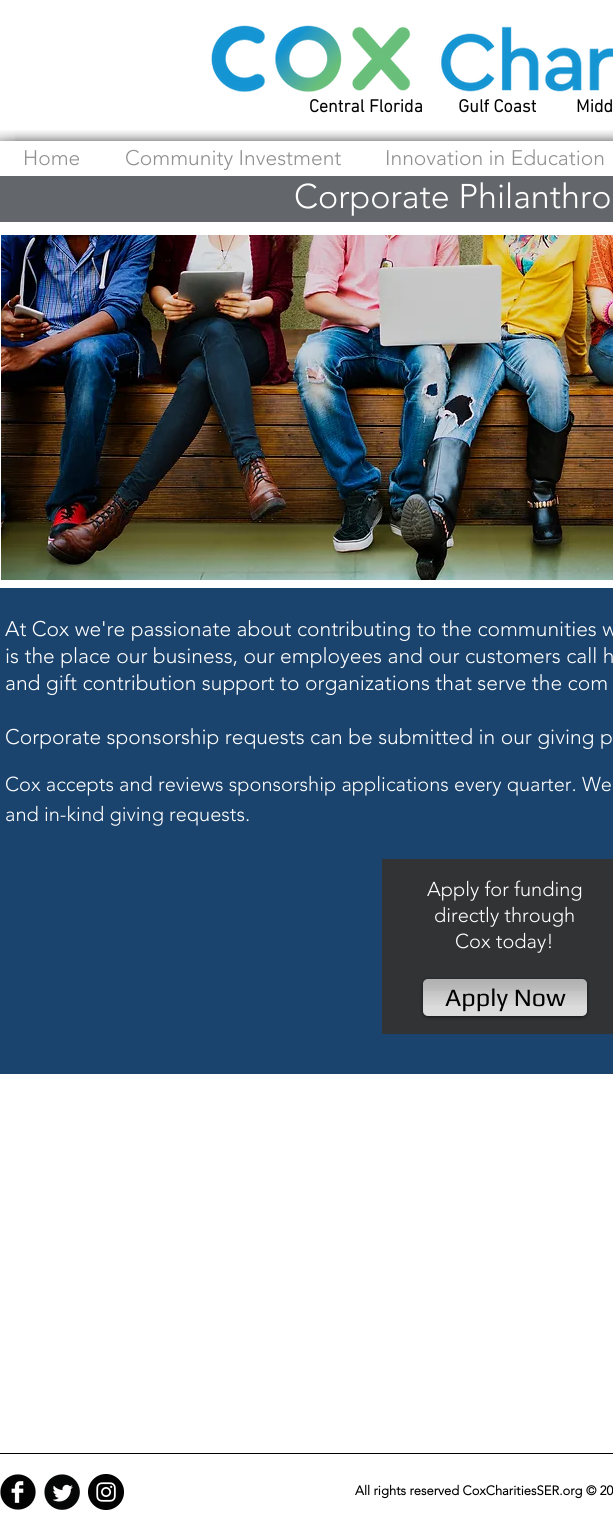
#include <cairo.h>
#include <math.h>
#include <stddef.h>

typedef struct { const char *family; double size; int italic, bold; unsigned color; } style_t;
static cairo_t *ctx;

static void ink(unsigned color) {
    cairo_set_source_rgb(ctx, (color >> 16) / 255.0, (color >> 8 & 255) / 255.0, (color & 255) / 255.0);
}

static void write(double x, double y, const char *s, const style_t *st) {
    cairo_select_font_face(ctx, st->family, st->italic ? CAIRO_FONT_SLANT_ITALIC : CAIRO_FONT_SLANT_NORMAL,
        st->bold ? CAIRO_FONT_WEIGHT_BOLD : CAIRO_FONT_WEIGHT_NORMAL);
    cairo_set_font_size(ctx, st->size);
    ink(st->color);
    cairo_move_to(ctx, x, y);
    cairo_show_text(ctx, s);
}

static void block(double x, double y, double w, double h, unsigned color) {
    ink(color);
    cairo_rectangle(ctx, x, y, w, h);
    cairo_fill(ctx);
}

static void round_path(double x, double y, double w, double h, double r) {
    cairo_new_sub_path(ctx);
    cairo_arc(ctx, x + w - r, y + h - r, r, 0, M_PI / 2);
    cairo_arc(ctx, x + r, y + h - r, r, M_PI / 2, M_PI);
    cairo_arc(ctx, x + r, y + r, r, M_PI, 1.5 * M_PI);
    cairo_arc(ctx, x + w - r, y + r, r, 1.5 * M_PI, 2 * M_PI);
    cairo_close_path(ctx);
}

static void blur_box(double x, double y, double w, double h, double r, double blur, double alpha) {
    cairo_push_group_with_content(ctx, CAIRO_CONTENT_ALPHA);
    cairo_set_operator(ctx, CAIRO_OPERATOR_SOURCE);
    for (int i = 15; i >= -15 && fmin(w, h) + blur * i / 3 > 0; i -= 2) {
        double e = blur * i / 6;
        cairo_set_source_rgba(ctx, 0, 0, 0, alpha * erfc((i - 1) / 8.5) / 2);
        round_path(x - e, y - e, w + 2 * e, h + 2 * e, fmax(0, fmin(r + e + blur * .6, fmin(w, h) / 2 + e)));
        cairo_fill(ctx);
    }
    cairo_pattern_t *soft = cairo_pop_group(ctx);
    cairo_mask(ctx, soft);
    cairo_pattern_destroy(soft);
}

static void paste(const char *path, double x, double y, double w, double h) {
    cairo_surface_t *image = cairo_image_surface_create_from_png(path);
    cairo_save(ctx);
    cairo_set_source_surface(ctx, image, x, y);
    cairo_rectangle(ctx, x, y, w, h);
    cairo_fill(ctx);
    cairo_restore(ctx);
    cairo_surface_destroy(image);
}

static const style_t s1 = {"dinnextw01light", 18, 0, 1, 0x000000};
static const style_t s2 = {"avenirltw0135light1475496 Light", 21, 0, 0, 0x909090};
static const style_t s3 = {"avenirltw0135light1475496 Light", 34, 0, 0, 0xffffff};
static const style_t s4 = {"avenirltw0135light1475496 Light", 21, 0, 0, 0xffffff};
static const style_t s5 = {"avenirltw0135light1475496 Light", 20, 0, 0, 0xffffff};
static const style_t s6 = {"Play", 25, 0, 0, 0x000000};
static const style_t s7 = {"avenirltw0135light1475496", 13, 0, 1, 0x000000};

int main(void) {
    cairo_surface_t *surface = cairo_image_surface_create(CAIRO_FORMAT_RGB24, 613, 1529);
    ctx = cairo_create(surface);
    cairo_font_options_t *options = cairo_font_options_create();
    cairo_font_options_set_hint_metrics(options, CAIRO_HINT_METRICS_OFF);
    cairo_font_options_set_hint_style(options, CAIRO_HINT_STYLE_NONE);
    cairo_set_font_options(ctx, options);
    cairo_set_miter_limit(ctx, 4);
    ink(0xffffff);
    cairo_paint(ctx);
    paste("pic1.png", 211, 25, 402, 68);
    write(309, 112, "Central Florida        Gulf Coast         Midd", &s1);
    write(23, 165, "Home", &s2);
    write(125, 165, "Community Investment", &s2);
    write(385, 165, "Innovation in Education", &s2);
    paste("pic2.png", 15, 130, 598, 22);
    paste("pic3.png", 0, 130, 15, 11);
    block(0, 176, 613, 46, 0x63666a);
    write(294, 208, "Corporate Philanthro", &s3);
    paste("pic4.png", 1, 235, 612, 345);
    block(0, 588, 613, 486, 0x1a436d);
    write(5, 636, "At Cox we're passionate about contributing to the communities w", &s4);
    write(5, 663, "is the place our business, our employees and our customers call h", &s4);
    write(5, 690, "and gift contribution support to organizations that serve the com", &s4);
    write(5, 744, "Corporate sponsorship requests can be submitted in our giving p", &s4);
    write(5, 791, "Cox accepts and reviews sponsorship applications every quarter. We", &s5);
    write(5, 821, "and in-kind giving requests.", &s5);
    block(382, 859, 231, 175, 0x313335);
    write(427, 896, "Apply for funding", &s5);
    write(434, 922, "directly through", &s5);
    write(455, 948, "Cox today!", &s5);
    ink(0x000000);
    blur_box(423, 980, 164, 37, 5, 2, 0.6);
    ink(0xd4d4d4);
    round_path(423, 979, 164, 37, 5);
    cairo_fill(ctx);
    paste("pic5.png", 423, 979, 164, 26);
    paste("pic6.png", 423, 991, 164, 25);
    write(445, 1006, "Apply Now", &s6);
    block(0, 1453, 613, 1, 0x000000);
    paste("pic7.png", 0, 1474, 36, 36);
    paste("pic8.png", 44, 1474, 36, 36);
    paste("pic9.png", 88, 1474, 36, 36);
    write(355, 1495, "All rights reserved CoxCharitiesSER.org © 20", &s7);
    cairo_surface_write_to_png(surface, "screenshot.png");
    cairo_font_options_destroy(options);
    cairo_destroy(ctx);
    cairo_surface_destroy(surface);
    return 0;
}
